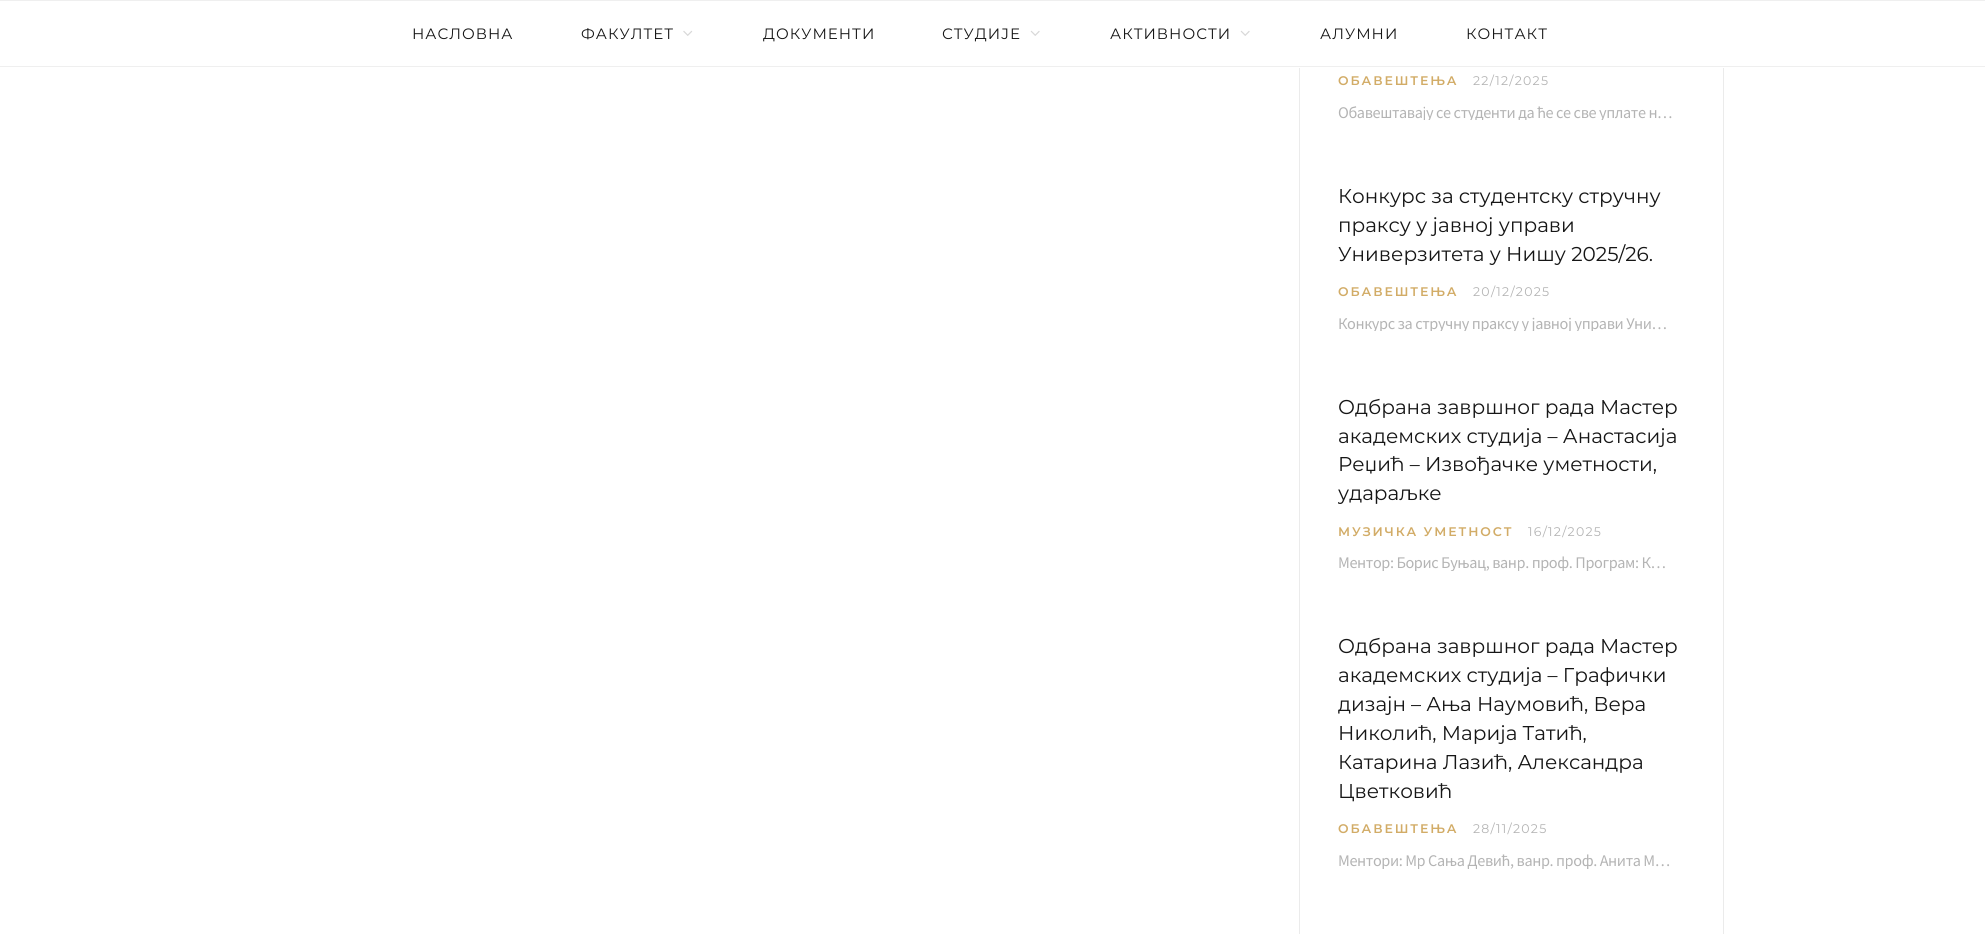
#include <cairo.h>
#include <math.h>
#include <stddef.h>

typedef struct { const char *family; double size; int italic, bold; unsigned color; } style_t;
static cairo_t *ctx;

static void ink(unsigned color) {
    cairo_set_source_rgb(ctx, (color >> 16) / 255.0, (color >> 8 & 255) / 255.0, (color & 255) / 255.0);
}

static void write(double x, double y, const char *s, const style_t *st) {
    cairo_select_font_face(ctx, st->family, st->italic ? CAIRO_FONT_SLANT_ITALIC : CAIRO_FONT_SLANT_NORMAL,
        st->bold ? CAIRO_FONT_WEIGHT_BOLD : CAIRO_FONT_WEIGHT_NORMAL);
    cairo_set_font_size(ctx, st->size);
    ink(st->color);
    cairo_move_to(ctx, x, y);
    cairo_show_text(ctx, s);
}

static void write_spaced(double x, double y, const char *s, double letter, double word) {
    cairo_move_to(ctx, x, y);
    while (*s) {
        char ch[5] = {0};
        int n = 0;
        do ch[n++] = *s++; while ((*s & 0xC0) == 0x80);
        cairo_show_text(ctx, ch);
        cairo_rel_move_to(ctx, letter + word * (*ch == ' '), 0);
    }
}

static void block(double x, double y, double w, double h, unsigned color) {
    ink(color);
    cairo_rectangle(ctx, x, y, w, h);
    cairo_fill(ctx);
}

static void paste(const char *path, double x, double y, double w, double h) {
    cairo_surface_t *image = cairo_image_surface_create_from_png(path);
    cairo_save(ctx);
    cairo_set_source_surface(ctx, image, x, y);
    cairo_rectangle(ctx, x, y, w, h);
    cairo_fill(ctx);
    cairo_restore(ctx);
    cairo_surface_destroy(image);
}

static const style_t s1 = {"Montserrat", 20, 0, 0, 0x161616};

int main(void) {
    cairo_surface_t *surface = cairo_image_surface_create(CAIRO_FORMAT_RGB24, 1985, 934);
    ctx = cairo_create(surface);
    cairo_font_options_t *options = cairo_font_options_create();
    cairo_font_options_set_hint_metrics(options, CAIRO_HINT_METRICS_OFF);
    cairo_font_options_set_hint_style(options, CAIRO_HINT_STYLE_NONE);
    cairo_set_font_options(ctx, options);
    cairo_set_miter_limit(ctx, 4);
    ink(0xffffff);
    cairo_paint(ctx);
    cairo_rectangle(ctx, 1299.5, -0.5, 424, 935);
    ink(0xebebeb);
    cairo_set_line_width(ctx, 1);
    cairo_stroke(ctx);
    block(1299, 1, 425, 67, 0xffffff);
    block(0, 0, 1985, 1, 0xefefef);
    block(0, 66, 1985, 1, 0xefefef);
    cairo_select_font_face(ctx, "Montserrat", CAIRO_FONT_SLANT_NORMAL, CAIRO_FONT_WEIGHT_NORMAL);
    cairo_set_font_size(ctx, 15);
    ink(0x161616);
    write_spaced(412, 39, "НАСЛОВНА", 1, 0);
    write_spaced(581, 39, "ФАКУЛТЕТ", 1, 0);
    paste("pic1.png", 683, 30, 10, 6);
    write_spaced(763, 39, "ДОКУМЕНТИ", 1, 0);
    write_spaced(942, 39, "СТУДИЈЕ", 1, 0);
    paste("pic2.png", 1030, 30, 10, 6);
    write_spaced(1110, 39, "АКТИВНОСТИ", 1, 0);
    paste("pic2.png", 1240, 30, 10, 6);
    write_spaced(1320, 39, "АЛУМНИ", 1, 0);
    write_spaced(1466, 39, "КОНТАКТ", 1, 0);
    cairo_select_font_face(ctx, "Montserrat SemiBold", CAIRO_FONT_SLANT_NORMAL, CAIRO_FONT_WEIGHT_NORMAL);
    cairo_set_font_size(ctx, 12.5);
    ink(0xd2ac67);
    write_spaced(1338, 85, "ОБАВЕШТЕЊА", 1.9, 0);
    cairo_select_font_face(ctx, "Montserrat", CAIRO_FONT_SLANT_NORMAL, CAIRO_FONT_WEIGHT_NORMAL);
    ink(0xb4b4b4);
    write_spaced(1473, 85, "22/12/2025", 1.25, 0);
    cairo_save(ctx);
    cairo_rectangle(ctx, 1338, 104, 347, 16);
    cairo_clip(ctx);
    cairo_select_font_face(ctx, "Source Sans Pro", CAIRO_FONT_SLANT_NORMAL, CAIRO_FONT_WEIGHT_NORMAL);
    cairo_set_font_size(ctx, 16.25);
    write_spaced(1338, 118, "Обавештавају се студенти да ће се све уплате н…", -0.4, 0);
    cairo_restore(ctx);
    write(1338, 203, "Конкурс за студентску стручну", &s1);
    write(1338, 232, "праксу у јавној управи", &s1);
    write(1338, 261, "Универзитета у Нишу 2025/26.", &s1);
    cairo_select_font_face(ctx, "Montserrat SemiBold", CAIRO_FONT_SLANT_NORMAL, CAIRO_FONT_WEIGHT_NORMAL);
    cairo_set_font_size(ctx, 12.5);
    ink(0xd2ac67);
    write_spaced(1338, 296, "ОБАВЕШТЕЊА", 1.9, 0);
    cairo_select_font_face(ctx, "Montserrat", CAIRO_FONT_SLANT_NORMAL, CAIRO_FONT_WEIGHT_NORMAL);
    ink(0xb4b4b4);
    write_spaced(1473, 296, "20/12/2025", 1.25, 0);
    cairo_save(ctx);
    cairo_rectangle(ctx, 1338, 315, 347, 16);
    cairo_clip(ctx);
    cairo_select_font_face(ctx, "Source Sans Pro", CAIRO_FONT_SLANT_NORMAL, CAIRO_FONT_WEIGHT_NORMAL);
    cairo_set_font_size(ctx, 16.25);
    write_spaced(1338, 329, "Конкурс за стручну праксу у јавној управи Уни…", -0.4, 0);
    cairo_restore(ctx);
    write(1338, 414, "Одбрана завршног рада Мастер", &s1);
    write(1338, 443, "академских студија – Анастасија", &s1);
    write(1338, 471, "Реџић – Извођачке уметности,", &s1);
    cairo_save(ctx);
    cairo_rectangle(ctx, 1338, 398, 347, 180);
    cairo_clip(ctx);
    write(1338, 500, "удараљке", &s1);
    cairo_restore(ctx);
    cairo_select_font_face(ctx, "Montserrat SemiBold", CAIRO_FONT_SLANT_NORMAL, CAIRO_FONT_WEIGHT_NORMAL);
    cairo_set_font_size(ctx, 12.5);
    ink(0xd2ac67);
    write_spaced(1338, 536, "МУЗИЧКА УМЕТНОСТ", 1.9, 0);
    cairo_select_font_face(ctx, "Montserrat", CAIRO_FONT_SLANT_NORMAL, CAIRO_FONT_WEIGHT_NORMAL);
    ink(0xb4b4b4);
    write_spaced(1528, 536, "16/12/2025", 1.25, 0);
    cairo_save(ctx);
    cairo_rectangle(ctx, 1338, 555, 347, 16);
    cairo_clip(ctx);
    cairo_select_font_face(ctx, "Source Sans Pro", CAIRO_FONT_SLANT_NORMAL, CAIRO_FONT_WEIGHT_NORMAL);
    cairo_set_font_size(ctx, 16.25);
    write_spaced(1338, 568, "Ментор: Борис Буњац, ванр. проф. Програм: К…", -0.4, 0);
    cairo_restore(ctx);
    write(1338, 653, "Одбрана завршног рада Мастер", &s1);
    write(1338, 682, "академских студија – Графички", &s1);
    cairo_save(ctx);
    cairo_rectangle(ctx, 1338, 638, 347, 237);
    cairo_clip(ctx);
    write(1338, 711, "дизајн", &s1);
    cairo_restore(ctx);
    write(1411, 711, "– Ања Наумовић, Вера", &s1);
    write(1338, 740, "Николић, Марија Татић,", &s1);
    write(1338, 769, "Катарина Лазић, Александра", &s1);
    write(1338, 798, "Цветковић", &s1);
    cairo_select_font_face(ctx, "Montserrat SemiBold", CAIRO_FONT_SLANT_NORMAL, CAIRO_FONT_WEIGHT_NORMAL);
    cairo_set_font_size(ctx, 12.5);
    ink(0xd2ac67);
    write_spaced(1338, 833, "ОБАВЕШТЕЊА", 1.9, 0);
    cairo_select_font_face(ctx, "Montserrat", CAIRO_FONT_SLANT_NORMAL, CAIRO_FONT_WEIGHT_NORMAL);
    ink(0xb4b4b4);
    write_spaced(1473, 833, "28/11/2025", 1.25, 0);
    cairo_save(ctx);
    cairo_rectangle(ctx, 1338, 853, 347, 16);
    cairo_clip(ctx);
    cairo_select_font_face(ctx, "Source Sans Pro", CAIRO_FONT_SLANT_NORMAL, CAIRO_FONT_WEIGHT_NORMAL);
    cairo_set_font_size(ctx, 16.25);
    write_spaced(1338, 866, "Ментори: Мр Сања Девић, ванр. проф. Анита М…", -0.4, 0);
    cairo_restore(ctx);
    cairo_surface_write_to_png(surface, "screenshot.png");
    cairo_font_options_destroy(options);
    cairo_destroy(ctx);
    cairo_surface_destroy(surface);
    return 0;
}
